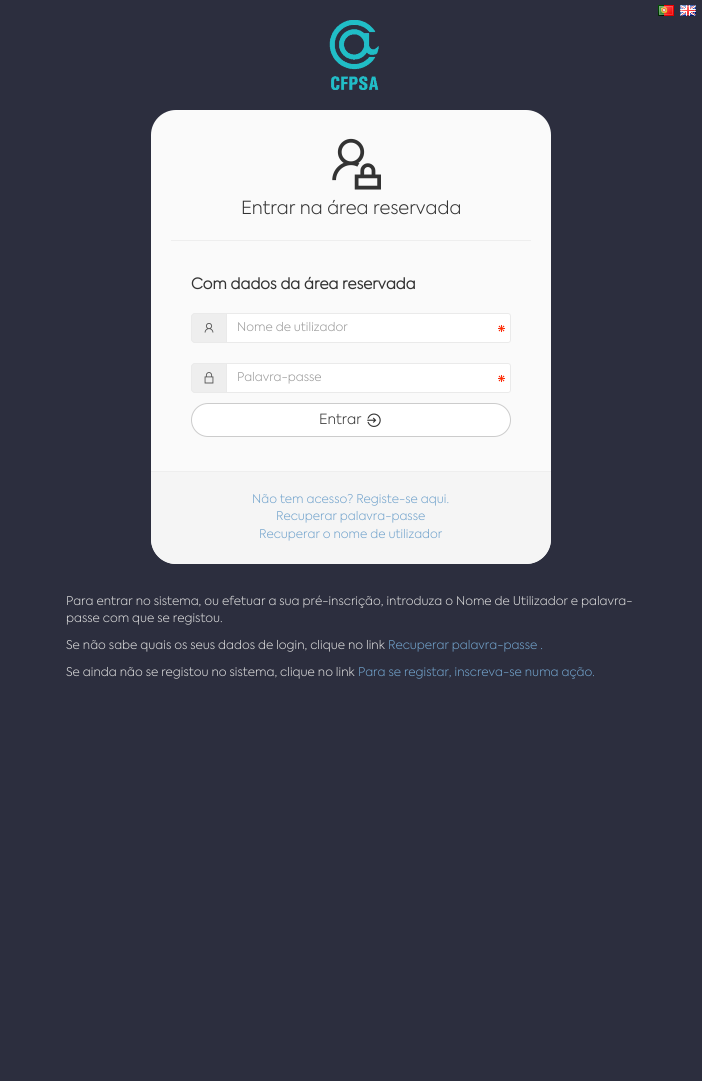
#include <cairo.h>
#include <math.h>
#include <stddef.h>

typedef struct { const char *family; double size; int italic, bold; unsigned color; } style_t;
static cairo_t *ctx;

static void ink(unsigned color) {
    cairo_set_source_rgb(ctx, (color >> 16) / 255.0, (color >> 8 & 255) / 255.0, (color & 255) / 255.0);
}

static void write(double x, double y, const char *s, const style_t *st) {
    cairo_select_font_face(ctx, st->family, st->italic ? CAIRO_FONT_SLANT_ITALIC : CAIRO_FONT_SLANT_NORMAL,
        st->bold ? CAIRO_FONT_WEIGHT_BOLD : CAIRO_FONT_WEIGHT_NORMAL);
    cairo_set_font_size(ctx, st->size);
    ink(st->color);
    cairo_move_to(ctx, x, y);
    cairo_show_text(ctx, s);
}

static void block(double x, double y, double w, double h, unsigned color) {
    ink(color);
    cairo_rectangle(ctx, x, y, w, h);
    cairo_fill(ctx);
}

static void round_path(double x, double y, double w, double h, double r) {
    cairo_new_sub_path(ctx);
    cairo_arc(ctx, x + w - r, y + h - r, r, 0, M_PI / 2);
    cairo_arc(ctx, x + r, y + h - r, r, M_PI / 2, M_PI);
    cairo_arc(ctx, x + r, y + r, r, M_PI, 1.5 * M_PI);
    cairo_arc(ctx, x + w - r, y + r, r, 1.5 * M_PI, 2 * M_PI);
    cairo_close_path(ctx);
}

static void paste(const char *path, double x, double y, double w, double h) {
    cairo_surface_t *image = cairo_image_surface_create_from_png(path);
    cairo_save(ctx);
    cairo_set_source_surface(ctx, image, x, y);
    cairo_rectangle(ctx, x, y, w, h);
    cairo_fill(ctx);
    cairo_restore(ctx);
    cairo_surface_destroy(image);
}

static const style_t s1 = {"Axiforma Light", 18, 0, 0, 0x333333};
static const style_t s2 = {"Axiforma", 15, 0, 1, 0x333333};
static const style_t s3 = {"Axiforma Light", 12, 0, 0, 0x999999};
static const style_t s4 = {"Axiforma Light", 14, 0, 0, 0x333333};
static const style_t s5 = {"Axiforma Light", 12, 0, 0, 0x72a3cc};
static const style_t s6 = {"Axiforma Light", 12, 0, 0, 0xdddddd};

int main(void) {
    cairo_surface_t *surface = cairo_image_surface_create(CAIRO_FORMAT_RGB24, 702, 1081);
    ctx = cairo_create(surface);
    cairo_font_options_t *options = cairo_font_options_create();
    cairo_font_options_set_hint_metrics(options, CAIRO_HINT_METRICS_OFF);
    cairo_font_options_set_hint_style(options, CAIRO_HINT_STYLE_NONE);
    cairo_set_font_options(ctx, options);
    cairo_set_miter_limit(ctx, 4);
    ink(0x2c2e3e);
    cairo_paint(ctx);
    paste("pic1.png", 658, 5, 16, 11);
    paste("pic2.png", 680, 5, 16, 11);
    paste("pic3.png", 329, 20, 50, 70);
    ink(0xfafafa);
    round_path(151, 110, 400, 454, 25);
    cairo_fill(ctx);
    paste("pic4.png", 332, 138, 49, 52);
    write(241, 214, "Entrar na área reservada", &s1);
    block(171, 240, 360, 1, 0xeeeeee);
    write(191, 289, "Com dados da área reservada", &s2);
    ink(0xeeeeee);
    cairo_new_path(ctx);
    cairo_move_to(ctx, 195, 313);
    cairo_line_to(ctx, 226, 313);
    cairo_line_to(ctx, 226, 343);
    cairo_line_to(ctx, 195, 343);
    cairo_curve_to(ctx, 193, 343, 191, 341, 191, 339);
    cairo_line_to(ctx, 191, 317);
    cairo_curve_to(ctx, 191, 315, 193, 313, 195, 313);
    cairo_close_path(ctx);
    cairo_fill(ctx);
    ink(0xeaeaea);
    cairo_set_fill_rule(ctx, CAIRO_FILL_RULE_EVEN_ODD);
    cairo_new_path(ctx);
    cairo_move_to(ctx, 195, 313);
    cairo_line_to(ctx, 226, 313);
    cairo_line_to(ctx, 226, 343);
    cairo_line_to(ctx, 195, 343);
    cairo_curve_to(ctx, 193, 343, 191, 341, 191, 339);
    cairo_line_to(ctx, 191, 317);
    cairo_curve_to(ctx, 191, 315, 193, 313, 195, 313);
    cairo_close_path(ctx);
    cairo_move_to(ctx, 195, 314);
    cairo_line_to(ctx, 226, 314);
    cairo_line_to(ctx, 226, 342);
    cairo_line_to(ctx, 195, 342);
    cairo_curve_to(ctx, 193.5, 342, 192, 340.5, 192, 339);
    cairo_line_to(ctx, 192, 317);
    cairo_curve_to(ctx, 192, 315.5, 193.5, 314, 195, 314);
    cairo_close_path(ctx);
    cairo_fill(ctx);
    paste("pic5.png", 204, 323, 10, 10);
    ink(0xffffff);
    cairo_new_path(ctx);
    cairo_move_to(ctx, 226, 313);
    cairo_line_to(ctx, 508, 313);
    cairo_curve_to(ctx, 509.5, 313, 511, 314.5, 511, 316);
    cairo_line_to(ctx, 511, 340);
    cairo_curve_to(ctx, 511, 341.5, 509.5, 343, 508, 343);
    cairo_line_to(ctx, 226, 343);
    cairo_close_path(ctx);
    cairo_fill(ctx);
    paste("pic6.png", 498, 325, 7, 7);
    cairo_new_path(ctx);
    cairo_move_to(ctx, 226.5, 313.5);
    cairo_line_to(ctx, 508, 313.5);
    cairo_curve_to(ctx, 509.5, 313.5, 510.5, 314.5, 510.5, 316);
    cairo_line_to(ctx, 510.5, 340);
    cairo_curve_to(ctx, 510.5, 341.5, 509.5, 342.5, 508, 342.5);
    cairo_line_to(ctx, 226.5, 342.5);
    cairo_close_path(ctx);
    ink(0xeaeaea);
    cairo_set_line_width(ctx, 1);
    cairo_stroke(ctx);
    write(237, 331, "Nome de utilizador", &s3);
    ink(0xeeeeee);
    cairo_new_path(ctx);
    cairo_move_to(ctx, 195, 363);
    cairo_line_to(ctx, 226, 363);
    cairo_line_to(ctx, 226, 393);
    cairo_line_to(ctx, 195, 393);
    cairo_curve_to(ctx, 193, 393, 191, 391, 191, 389);
    cairo_line_to(ctx, 191, 367);
    cairo_curve_to(ctx, 191, 365, 193, 363, 195, 363);
    cairo_close_path(ctx);
    cairo_fill(ctx);
    ink(0xeaeaea);
    cairo_new_path(ctx);
    cairo_move_to(ctx, 195, 363);
    cairo_line_to(ctx, 226, 363);
    cairo_line_to(ctx, 226, 393);
    cairo_line_to(ctx, 195, 393);
    cairo_curve_to(ctx, 193, 393, 191, 391, 191, 389);
    cairo_line_to(ctx, 191, 367);
    cairo_curve_to(ctx, 191, 365, 193, 363, 195, 363);
    cairo_close_path(ctx);
    cairo_move_to(ctx, 195, 364);
    cairo_line_to(ctx, 226, 364);
    cairo_line_to(ctx, 226, 392);
    cairo_line_to(ctx, 195, 392);
    cairo_curve_to(ctx, 193.5, 392, 192, 390.5, 192, 389);
    cairo_line_to(ctx, 192, 367);
    cairo_curve_to(ctx, 192, 365.5, 193.5, 364, 195, 364);
    cairo_close_path(ctx);
    cairo_fill(ctx);
    paste("pic7.png", 204, 372, 10, 12);
    ink(0xffffff);
    cairo_new_path(ctx);
    cairo_move_to(ctx, 226, 363);
    cairo_line_to(ctx, 508, 363);
    cairo_curve_to(ctx, 509.5, 363, 511, 364.5, 511, 366);
    cairo_line_to(ctx, 511, 390);
    cairo_curve_to(ctx, 511, 391.5, 509.5, 393, 508, 393);
    cairo_line_to(ctx, 226, 393);
    cairo_close_path(ctx);
    cairo_fill(ctx);
    paste("pic6.png", 498, 375, 7, 7);
    cairo_new_path(ctx);
    cairo_move_to(ctx, 226.5, 363.5);
    cairo_line_to(ctx, 508, 363.5);
    cairo_curve_to(ctx, 509.5, 363.5, 510.5, 364.5, 510.5, 366);
    cairo_line_to(ctx, 510.5, 390);
    cairo_curve_to(ctx, 510.5, 391.5, 509.5, 392.5, 508, 392.5);
    cairo_line_to(ctx, 226.5, 392.5);
    cairo_close_path(ctx);
    ink(0xeaeaea);
    cairo_stroke(ctx);
    write(237, 381, "Palavra-passe", &s3);
    ink(0xffffff);
    round_path(191.5, 403.5, 319, 33, 16.5);
    cairo_fill_preserve(ctx);
    ink(0xcccccc);
    cairo_stroke(ctx);
    write(319, 424, "Entrar", &s4);
    paste("pic8.png", 367, 413, 14, 14);
    ink(0xf5f5f5);
    cairo_new_path(ctx);
    cairo_move_to(ctx, 151, 471);
    cairo_line_to(ctx, 551, 471);
    cairo_line_to(ctx, 551, 539);
    cairo_curve_to(ctx, 551, 553, 540, 564, 526, 564);
    cairo_line_to(ctx, 176, 564);
    cairo_curve_to(ctx, 162, 564, 151, 553, 151, 539);
    cairo_close_path(ctx);
    cairo_fill(ctx);
    block(151, 471, 400, 1, 0xeeeeee);
    write(252, 503, "Não tem acesso? Registe-se aqui.", &s5);
    write(276, 520, "Recuperar palavra-passe", &s5);
    write(259, 538, "Recuperar o nome de utilizador", &s5);
    write(66, 605, "Para entrar no sistema, ou efetuar a sua pré-inscrição, introduza o Nome de Utilizador e palavra-", &s6);
    write(66, 622, "passe com que se registou.", &s6);
    write(66, 649, "Se não sabe quais os seus dados de login, clique no link", &s6);
    write(388, 649, "Recuperar palavra-passe .", &s5);
    write(66, 676, "Se ainda não se registou no sistema, clique no link", &s6);
    write(358, 676, "Para se registar, inscreva-se numa ação.", &s5);
    cairo_surface_write_to_png(surface, "screenshot.png");
    cairo_font_options_destroy(options);
    cairo_destroy(ctx);
    cairo_surface_destroy(surface);
    return 0;
}
